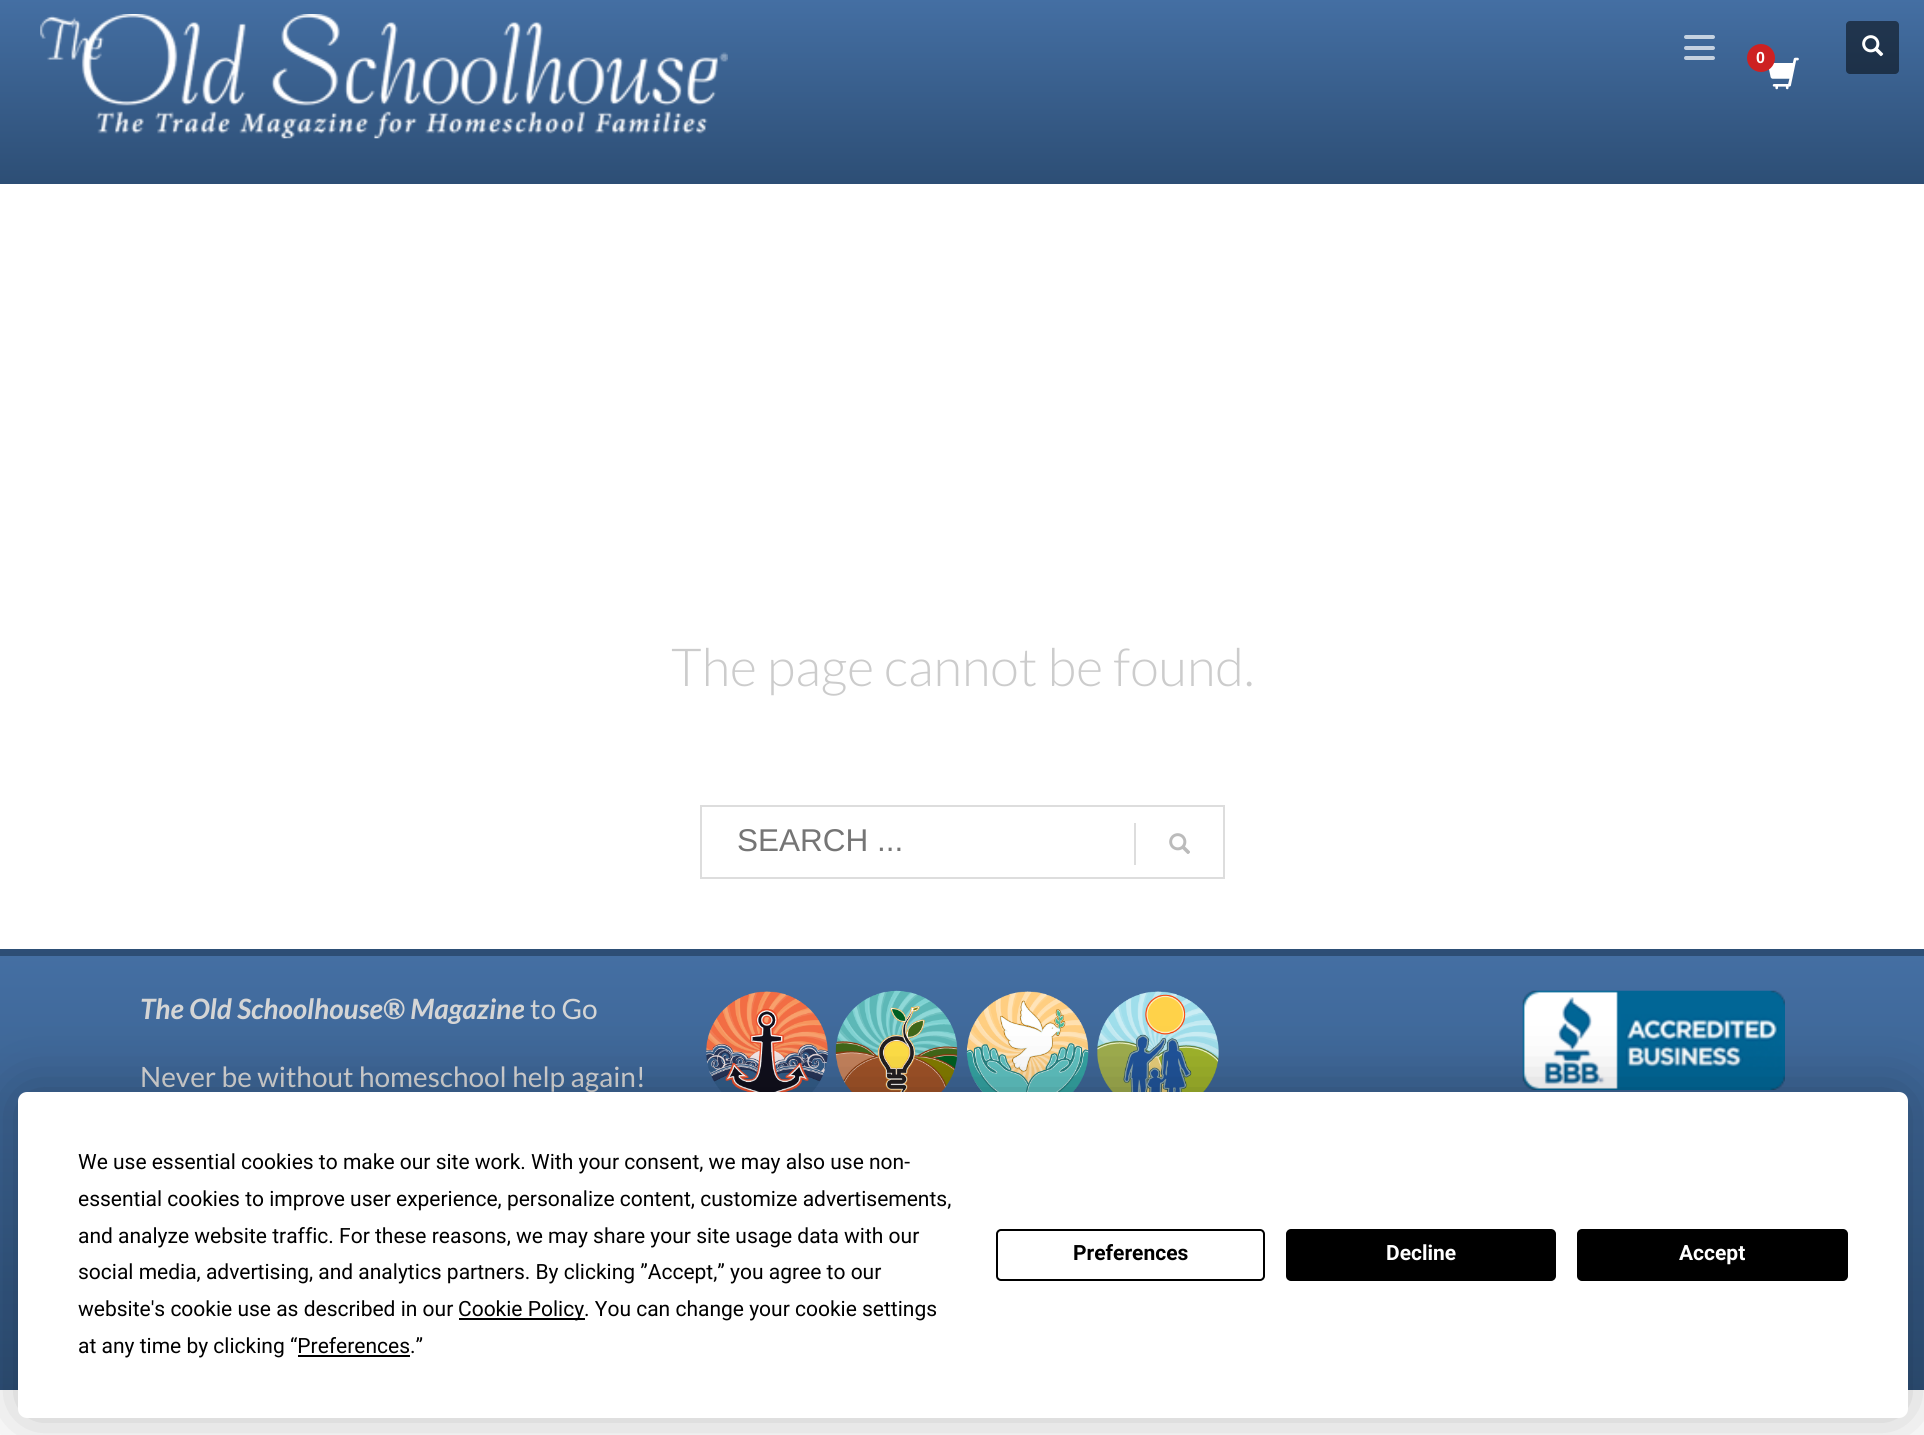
#include <cairo.h>
#include <math.h>
#include <stddef.h>

typedef struct { const char *family; double size; int italic, bold; unsigned color; } style_t;
static cairo_t *ctx;

static void ink(unsigned color) {
    cairo_set_source_rgb(ctx, (color >> 16) / 255.0, (color >> 8 & 255) / 255.0, (color & 255) / 255.0);
}

static void write(double x, double y, const char *s, const style_t *st) {
    cairo_select_font_face(ctx, st->family, st->italic ? CAIRO_FONT_SLANT_ITALIC : CAIRO_FONT_SLANT_NORMAL,
        st->bold ? CAIRO_FONT_WEIGHT_BOLD : CAIRO_FONT_WEIGHT_NORMAL);
    cairo_set_font_size(ctx, st->size);
    ink(st->color);
    cairo_move_to(ctx, x, y);
    cairo_show_text(ctx, s);
}

static void block(double x, double y, double w, double h, unsigned color) {
    ink(color);
    cairo_rectangle(ctx, x, y, w, h);
    cairo_fill(ctx);
}

static void round_path(double x, double y, double w, double h, double r) {
    cairo_new_sub_path(ctx);
    cairo_arc(ctx, x + w - r, y + h - r, r, 0, M_PI / 2);
    cairo_arc(ctx, x + r, y + h - r, r, M_PI / 2, M_PI);
    cairo_arc(ctx, x + r, y + r, r, M_PI, 1.5 * M_PI);
    cairo_arc(ctx, x + w - r, y + r, r, 1.5 * M_PI, 2 * M_PI);
    cairo_close_path(ctx);
}

static void blur_box(double x, double y, double w, double h, double r, double blur, double alpha) {
    cairo_push_group_with_content(ctx, CAIRO_CONTENT_ALPHA);
    cairo_set_operator(ctx, CAIRO_OPERATOR_SOURCE);
    for (int i = 15; i >= -15 && fmin(w, h) + blur * i / 3 > 0; i -= 2) {
        double e = blur * i / 6;
        cairo_set_source_rgba(ctx, 0, 0, 0, alpha * erfc((i - 1) / 8.5) / 2);
        round_path(x - e, y - e, w + 2 * e, h + 2 * e, fmax(0, fmin(r + e + blur * .6, fmin(w, h) / 2 + e)));
        cairo_fill(ctx);
    }
    cairo_pattern_t *soft = cairo_pop_group(ctx);
    cairo_mask(ctx, soft);
    cairo_pattern_destroy(soft);
}

static void paste(const char *path, double x, double y, double w, double h) {
    cairo_surface_t *image = cairo_image_surface_create_from_png(path);
    cairo_save(ctx);
    cairo_set_source_surface(ctx, image, x, y);
    cairo_rectangle(ctx, x, y, w, h);
    cairo_fill(ctx);
    cairo_restore(ctx);
    cairo_surface_destroy(image);
}

static const style_t s1 = {"Liberation Sans", 16, 0, 1, 0xffffff};
static const style_t s2 = {"Lato Light", 52.5, 0, 0, 0xcccccc};
static const style_t s3 = {"Liberation Sans", 31.5, 0, 0, 0x757575};
static const style_t s4 = {"Lato", 28, 1, 1, 0xd5d5d5};
static const style_t s5 = {"Lato", 28, 0, 0, 0xd5d5d5};
static const style_t s6 = {"Roboto", 21, 0, 0, 0x000000};
static const style_t s7 = {"Roboto", 21, 0, 1, 0x000000};
static const style_t s8 = {"Roboto", 21, 0, 1, 0xffffff};

int main(void) {
    cairo_surface_t *surface = cairo_image_surface_create(CAIRO_FORMAT_RGB24, 1924, 1435);
    ctx = cairo_create(surface);
    cairo_font_options_t *options = cairo_font_options_create();
    cairo_font_options_set_hint_metrics(options, CAIRO_HINT_METRICS_OFF);
    cairo_font_options_set_hint_style(options, CAIRO_HINT_STYLE_NONE);
    cairo_set_font_options(ctx, options);
    cairo_set_miter_limit(ctx, 4);
    cairo_pattern_t *gradient;
    ink(0xffffff);
    cairo_paint(ctx);
    gradient = cairo_pattern_create_linear(963, 0, 963, 184);
    cairo_pattern_add_color_stop_rgba(gradient, 0, 0.267, 0.435, 0.639, 1);
    cairo_pattern_add_color_stop_rgba(gradient, 1, 0.176, 0.306, 0.459, 1);
    cairo_set_source(ctx, gradient);
    cairo_pattern_destroy(gradient);
    cairo_rectangle(ctx, 0, 0, 1924, 184);
    cairo_fill(ctx);
    paste("pic1.png", 40, 14, 688, 125);
    ink(0xc5d1df);
    round_path(1684, 56, 31, 4, 2);
    cairo_fill(ctx);
    ink(0xc5d1e0);
    round_path(1684, 46, 31, 4, 2);
    cairo_fill(ctx);
    ink(0xc5d2e1);
    round_path(1684, 35, 31, 4, 2);
    cairo_fill(ctx);
    paste("pic2.png", 1769, 57, 30, 33);
    ink(0xcd2122);
    cairo_arc(ctx, 1761, 58, 14, 0, 2 * M_PI);
    cairo_fill(ctx);
    write(1756, 63, "0", &s1);
    cairo_set_source_rgba(ctx, 0, 0, 0, 0.5);
    round_path(1846, 21, 53, 53, 4);
    cairo_fill(ctx);
    paste("pic3.png", 1862, 35, 22, 22);
    write(671, 686, "The page cannot be found.", &s2);
    cairo_rectangle(ctx, 701, 806, 523, 72);
    ink(0xdddddd);
    cairo_stroke(ctx);
    write(737, 851, "SEARCH ...", &s3);
    block(1134, 823, 2, 42, 0xdddddd);
    paste("pic4.png", 1169, 833, 21, 21);
    gradient = cairo_pattern_create_linear(963, 521, 963, 956);
    cairo_pattern_add_color_stop_rgba(gradient, 0, 0.267, 0.435, 0.639, 1);
    cairo_pattern_add_color_stop_rgba(gradient, 1, 0.176, 0.306, 0.459, 1);
    cairo_set_source(ctx, gradient);
    cairo_pattern_destroy(gradient);
    cairo_rectangle(ctx, 0, 949, 1924, 7);
    cairo_fill(ctx);
    gradient = cairo_pattern_create_linear(963, 955, 963, 1390);
    cairo_pattern_add_color_stop_rgba(gradient, 0, 0.267, 0.435, 0.639, 1);
    cairo_pattern_add_color_stop_rgba(gradient, 1, 0.176, 0.306, 0.459, 1);
    cairo_set_source(ctx, gradient);
    cairo_pattern_destroy(gradient);
    cairo_rectangle(ctx, 0, 956, 1924, 434);
    cairo_fill(ctx);
    write(140, 1019, "The Old Schoolhouse® Magazine", &s4);
    write(530, 1019, "to Go", &s5);
    write(140, 1087, "Never be without homeschool help again!", &s5);
    paste("pic5.png", 706, 990, 513, 102);
    paste("pic6.png", 1522, 990, 263, 100);
    ink(0x000000);
    blur_box(18, 1092, 1890, 326, 9, 30.5, 0.25);
    ink(0xffffff);
    round_path(18, 1092, 1890, 326, 9);
    cairo_fill(ctx);
    write(78, 1169, "We use essential cookies to make our site work. With your consent, we may also use non-", &s6);
    write(78, 1206, "essential cookies to improve user experience, personalize content, customize advertisements,", &s6);
    write(78, 1243, "and analyze website traffic. For these reasons, we may share your site usage data with our", &s6);
    write(78, 1279, "social media, advertising, and analytics partners. By clicking ”Accept,” you agree to our", &s6);
    write(78, 1316, "website's cookie use as described in our", &s6);
    block(459, 1318, 126, 2, 0x000000);
    write(458, 1316, "Cookie Policy. You can change your cookie settings", &s6);
    write(78, 1353, "at any time by clicking “Preferences.”", &s6);
    block(298, 1355, 112, 2, 0x000000);
    round_path(997, 1230, 267, 50, 4);
    cairo_stroke(ctx);
    write(1073, 1260, "Preferences", &s7);
    round_path(1287, 1230, 268, 50, 4);
    cairo_fill_preserve(ctx);
    cairo_stroke(ctx);
    write(1386, 1260, "Decline", &s8);
    ink(0x000000);
    round_path(1578, 1230, 269, 50, 4);
    cairo_fill_preserve(ctx);
    cairo_stroke(ctx);
    write(1679, 1260, "Accept", &s8);
    cairo_surface_write_to_png(surface, "screenshot.png");
    cairo_font_options_destroy(options);
    cairo_destroy(ctx);
    cairo_surface_destroy(surface);
    return 0;
}
